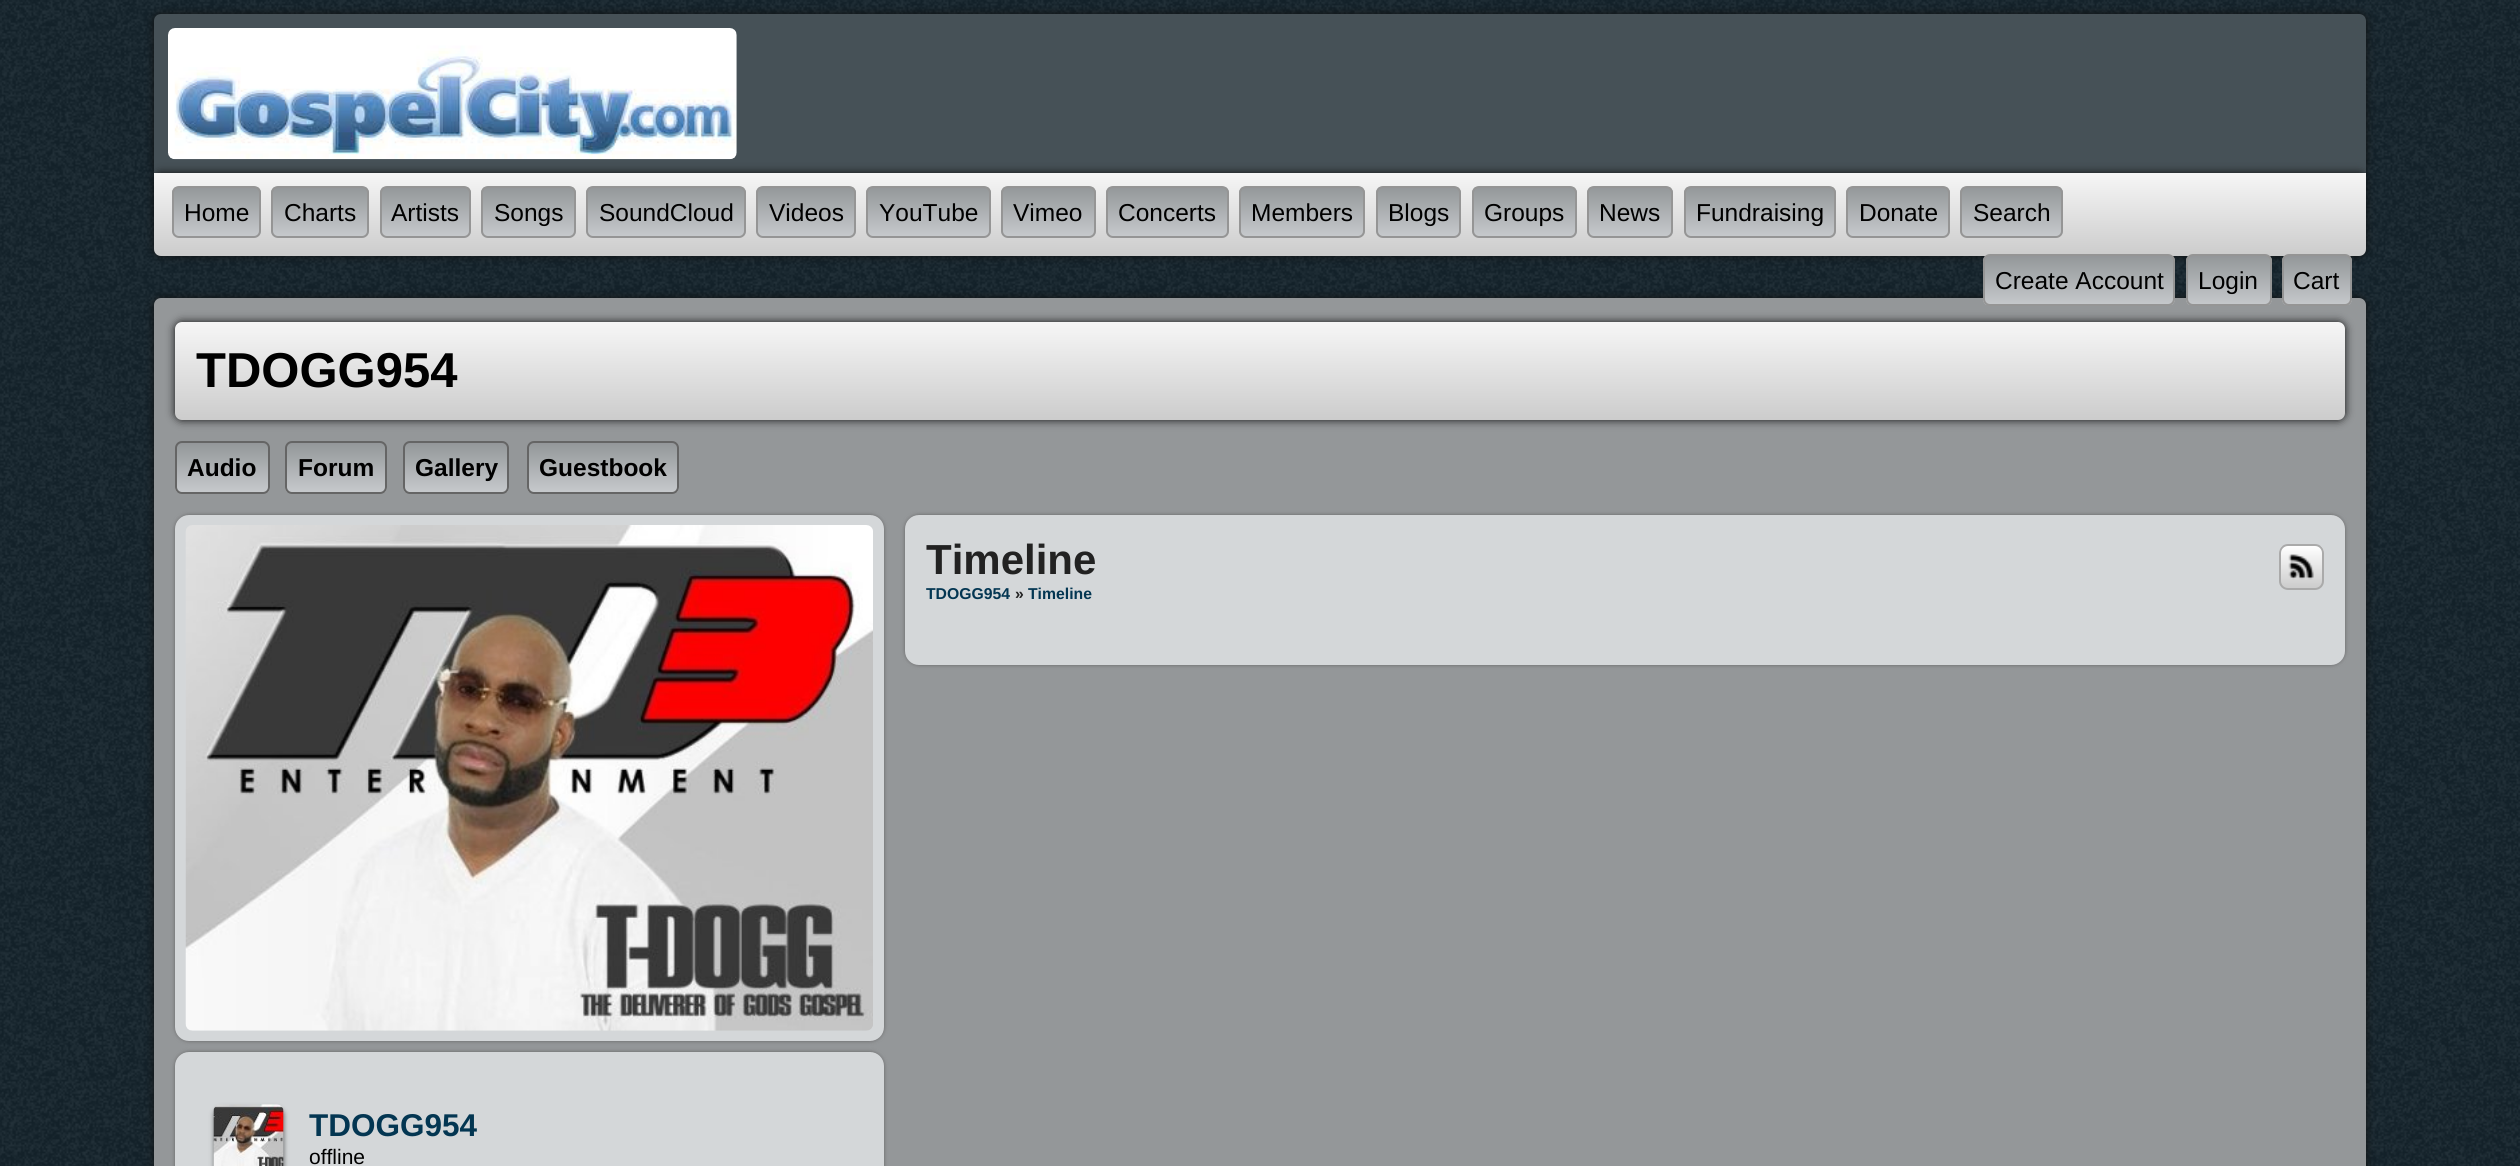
#include <cairo.h>
#include <math.h>
#include <stddef.h>

typedef struct { const char *family; double size; int italic, bold; unsigned color; } style_t;
static cairo_t *ctx;

static void ink(unsigned color) {
    cairo_set_source_rgb(ctx, (color >> 16) / 255.0, (color >> 8 & 255) / 255.0, (color & 255) / 255.0);
}

static void write(double x, double y, const char *s, const style_t *st) {
    cairo_select_font_face(ctx, st->family, st->italic ? CAIRO_FONT_SLANT_ITALIC : CAIRO_FONT_SLANT_NORMAL,
        st->bold ? CAIRO_FONT_WEIGHT_BOLD : CAIRO_FONT_WEIGHT_NORMAL);
    cairo_set_font_size(ctx, st->size);
    ink(st->color);
    cairo_move_to(ctx, x, y);
    cairo_show_text(ctx, s);
}

static void round_path(double x, double y, double w, double h, double r) {
    cairo_new_sub_path(ctx);
    cairo_arc(ctx, x + w - r, y + h - r, r, 0, M_PI / 2);
    cairo_arc(ctx, x + r, y + h - r, r, M_PI / 2, M_PI);
    cairo_arc(ctx, x + r, y + r, r, M_PI, 1.5 * M_PI);
    cairo_arc(ctx, x + w - r, y + r, r, 1.5 * M_PI, 2 * M_PI);
    cairo_close_path(ctx);
}

static void blur_box(double x, double y, double w, double h, double r, double blur, double alpha) {
    cairo_push_group_with_content(ctx, CAIRO_CONTENT_ALPHA);
    cairo_set_operator(ctx, CAIRO_OPERATOR_SOURCE);
    for (int i = 15; i >= -15 && fmin(w, h) + blur * i / 3 > 0; i -= 2) {
        double e = blur * i / 6;
        cairo_set_source_rgba(ctx, 0, 0, 0, alpha * erfc((i - 1) / 8.5) / 2);
        round_path(x - e, y - e, w + 2 * e, h + 2 * e, fmax(0, fmin(r + e + blur * .6, fmin(w, h) / 2 + e)));
        cairo_fill(ctx);
    }
    cairo_pattern_t *soft = cairo_pop_group(ctx);
    cairo_mask(ctx, soft);
    cairo_pattern_destroy(soft);
}

static void paste(const char *path, double x, double y, double w, double h) {
    cairo_surface_t *image = cairo_image_surface_create_from_png(path);
    cairo_save(ctx);
    cairo_set_source_surface(ctx, image, x, y);
    cairo_rectangle(ctx, x, y, w, h);
    cairo_fill(ctx);
    cairo_restore(ctx);
    cairo_surface_destroy(image);
}

static const style_t s1 = {"Liberation Sans", 24.5, 0, 0, 0x000000};
static const style_t s2 = {"Liberation Sans", 49, 0, 1, 0x000000};
static const style_t s3 = {"Liberation Sans", 24.5, 0, 1, 0x000000};
static const style_t s4 = {"Liberation Sans", 42, 0, 1, 0x222222};
static const style_t s5 = {"Liberation Sans", 15.75, 0, 1, 0x033652};
static const style_t s6 = {"Liberation Sans", 15.75, 0, 1, 0x222222};
static const style_t s7 = {"Liberation Sans", 31.5, 0, 1, 0x033652};
static const style_t s8 = {"Liberation Sans", 21, 0, 0, 0x000000};

int main(void) {
    cairo_surface_t *surface = cairo_image_surface_create(CAIRO_FORMAT_RGB24, 2520, 1166);
    ctx = cairo_create(surface);
    cairo_font_options_t *options = cairo_font_options_create();
    cairo_font_options_set_hint_metrics(options, CAIRO_HINT_METRICS_OFF);
    cairo_font_options_set_hint_style(options, CAIRO_HINT_STYLE_NONE);
    cairo_set_font_options(ctx, options);
    cairo_set_miter_limit(ctx, 4);
    cairo_pattern_t *gradient;
    ink(0x182933);
    cairo_paint(ctx);
    paste("pic1.png", 0, 0, 2520, 1166);
    ink(0x111111);
    blur_box(154, 14, 2212, 159, 7, 4.5, 1);
    ink(0x465157);
    cairo_new_path(ctx);
    cairo_move_to(ctx, 161, 14);
    cairo_line_to(ctx, 2359, 14);
    cairo_curve_to(ctx, 2363, 14, 2366, 17, 2366, 21);
    cairo_line_to(ctx, 2366, 173);
    cairo_line_to(ctx, 154, 173);
    cairo_line_to(ctx, 154, 21);
    cairo_curve_to(ctx, 154, 17, 157, 14, 161, 14);
    cairo_close_path(ctx);
    cairo_fill(ctx);
    ink(0x111111);
    blur_box(154, 173, 2212, 83, 7, 4.5, 1);
    paste("pic2.png", 168, 28, 569, 132);
    gradient = cairo_pattern_create_linear(1260, 173, 1260, 256);
    cairo_pattern_add_color_stop_rgba(gradient, 0, 0.965, 0.965, 0.965, 1);
    cairo_pattern_add_color_stop_rgba(gradient, 1, 0.8, 0.8, 0.8, 1);
    cairo_set_source(ctx, gradient);
    cairo_pattern_destroy(gradient);
    cairo_new_path(ctx);
    cairo_move_to(ctx, 154, 173);
    cairo_line_to(ctx, 2366, 173);
    cairo_line_to(ctx, 2366, 249);
    cairo_curve_to(ctx, 2366, 253, 2363, 256, 2359, 256);
    cairo_line_to(ctx, 161, 256);
    cairo_curve_to(ctx, 157, 256, 154, 253, 154, 249);
    cairo_close_path(ctx);
    cairo_fill(ctx);
    cairo_save(ctx);
    round_path(172, 186, 89, 52, 7);
    cairo_clip(ctx);
    gradient = cairo_pattern_create_linear(216, 187, 216, 236);
    cairo_pattern_add_color_stop_rgba(gradient, 0, 0.58, 0.592, 0.6, 1);
    cairo_pattern_add_color_stop_rgba(gradient, 1, 0.773, 0.788, 0.8, 1);
    cairo_set_source(ctx, gradient);
    cairo_pattern_destroy(gradient);
    cairo_rectangle(ctx, 172, 187, 89, 49);
    cairo_fill(ctx);
    cairo_restore(ctx);
    round_path(173, 187, 87, 50, 6);
    ink(0x959595);
    cairo_stroke(ctx);
    write(184, 221, "Home", &s1);
    cairo_save(ctx);
    round_path(271, 186, 98, 52, 7);
    cairo_clip(ctx);
    gradient = cairo_pattern_create_linear(320, 187, 320, 236);
    cairo_pattern_add_color_stop_rgba(gradient, 0, 0.58, 0.592, 0.6, 1);
    cairo_pattern_add_color_stop_rgba(gradient, 1, 0.773, 0.788, 0.8, 1);
    cairo_set_source(ctx, gradient);
    cairo_pattern_destroy(gradient);
    cairo_rectangle(ctx, 271, 187, 98, 49);
    cairo_fill(ctx);
    cairo_restore(ctx);
    round_path(272, 187, 96, 50, 6);
    ink(0x959595);
    cairo_stroke(ctx);
    write(284, 221, "Charts", &s1);
    cairo_save(ctx);
    round_path(380, 186, 91, 52, 7);
    cairo_clip(ctx);
    gradient = cairo_pattern_create_linear(425, 187, 425, 236);
    cairo_pattern_add_color_stop_rgba(gradient, 0, 0.58, 0.592, 0.6, 1);
    cairo_pattern_add_color_stop_rgba(gradient, 1, 0.773, 0.788, 0.8, 1);
    cairo_set_source(ctx, gradient);
    cairo_pattern_destroy(gradient);
    cairo_rectangle(ctx, 380, 187, 91, 49);
    cairo_fill(ctx);
    cairo_restore(ctx);
    round_path(381, 187, 89, 50, 6);
    ink(0x959595);
    cairo_stroke(ctx);
    write(391, 221, "Artists", &s1);
    cairo_save(ctx);
    round_path(481, 186, 95, 52, 7);
    cairo_clip(ctx);
    gradient = cairo_pattern_create_linear(529, 187, 529, 236);
    cairo_pattern_add_color_stop_rgba(gradient, 0, 0.58, 0.592, 0.6, 1);
    cairo_pattern_add_color_stop_rgba(gradient, 1, 0.773, 0.788, 0.8, 1);
    cairo_set_source(ctx, gradient);
    cairo_pattern_destroy(gradient);
    cairo_rectangle(ctx, 481, 187, 95, 49);
    cairo_fill(ctx);
    cairo_restore(ctx);
    round_path(482, 187, 93, 50, 6);
    ink(0x959595);
    cairo_stroke(ctx);
    write(494, 221, "Songs", &s1);
    cairo_save(ctx);
    round_path(586, 186, 160, 52, 7);
    cairo_clip(ctx);
    gradient = cairo_pattern_create_linear(666, 187, 666, 236);
    cairo_pattern_add_color_stop_rgba(gradient, 0, 0.58, 0.592, 0.6, 1);
    cairo_pattern_add_color_stop_rgba(gradient, 1, 0.773, 0.788, 0.8, 1);
    cairo_set_source(ctx, gradient);
    cairo_pattern_destroy(gradient);
    cairo_rectangle(ctx, 586, 187, 160, 49);
    cairo_fill(ctx);
    cairo_restore(ctx);
    round_path(587, 187, 158, 50, 6);
    ink(0x959595);
    cairo_stroke(ctx);
    write(599, 221, "SoundCloud", &s1);
    cairo_save(ctx);
    round_path(756, 186, 100, 52, 7);
    cairo_clip(ctx);
    gradient = cairo_pattern_create_linear(806, 187, 806, 236);
    cairo_pattern_add_color_stop_rgba(gradient, 0, 0.58, 0.592, 0.6, 1);
    cairo_pattern_add_color_stop_rgba(gradient, 1, 0.773, 0.788, 0.8, 1);
    cairo_set_source(ctx, gradient);
    cairo_pattern_destroy(gradient);
    cairo_rectangle(ctx, 756, 187, 100, 49);
    cairo_fill(ctx);
    cairo_restore(ctx);
    round_path(757, 187, 98, 50, 6);
    ink(0x959595);
    cairo_stroke(ctx);
    write(769, 221, "Videos", &s1);
    cairo_save(ctx);
    round_path(866, 186, 125, 52, 7);
    cairo_clip(ctx);
    gradient = cairo_pattern_create_linear(928, 187, 928, 236);
    cairo_pattern_add_color_stop_rgba(gradient, 0, 0.58, 0.592, 0.6, 1);
    cairo_pattern_add_color_stop_rgba(gradient, 1, 0.773, 0.788, 0.8, 1);
    cairo_set_source(ctx, gradient);
    cairo_pattern_destroy(gradient);
    cairo_rectangle(ctx, 866, 187, 125, 49);
    cairo_fill(ctx);
    cairo_restore(ctx);
    round_path(867, 187, 123, 50, 6);
    ink(0x959595);
    cairo_stroke(ctx);
    write(879, 221, "YouTube", &s1);
    cairo_save(ctx);
    round_path(1001, 186, 95, 52, 7);
    cairo_clip(ctx);
    gradient = cairo_pattern_create_linear(1048, 187, 1048, 236);
    cairo_pattern_add_color_stop_rgba(gradient, 0, 0.58, 0.592, 0.6, 1);
    cairo_pattern_add_color_stop_rgba(gradient, 1, 0.773, 0.788, 0.8, 1);
    cairo_set_source(ctx, gradient);
    cairo_pattern_destroy(gradient);
    cairo_rectangle(ctx, 1001, 187, 95, 49);
    cairo_fill(ctx);
    cairo_restore(ctx);
    round_path(1002, 187, 93, 50, 6);
    ink(0x959595);
    cairo_stroke(ctx);
    write(1013, 221, "Vimeo", &s1);
    cairo_save(ctx);
    round_path(1106, 186, 123, 52, 7);
    cairo_clip(ctx);
    gradient = cairo_pattern_create_linear(1167, 187, 1167, 236);
    cairo_pattern_add_color_stop_rgba(gradient, 0, 0.58, 0.592, 0.6, 1);
    cairo_pattern_add_color_stop_rgba(gradient, 1, 0.773, 0.788, 0.8, 1);
    cairo_set_source(ctx, gradient);
    cairo_pattern_destroy(gradient);
    cairo_rectangle(ctx, 1106, 187, 123, 49);
    cairo_fill(ctx);
    cairo_restore(ctx);
    round_path(1107, 187, 121, 50, 6);
    ink(0x959595);
    cairo_stroke(ctx);
    write(1118, 221, "Concerts", &s1);
    cairo_save(ctx);
    round_path(1239, 186, 126, 52, 7);
    cairo_clip(ctx);
    gradient = cairo_pattern_create_linear(1302, 187, 1302, 236);
    cairo_pattern_add_color_stop_rgba(gradient, 0, 0.58, 0.592, 0.6, 1);
    cairo_pattern_add_color_stop_rgba(gradient, 1, 0.773, 0.788, 0.8, 1);
    cairo_set_source(ctx, gradient);
    cairo_pattern_destroy(gradient);
    cairo_rectangle(ctx, 1239, 187, 126, 49);
    cairo_fill(ctx);
    cairo_restore(ctx);
    round_path(1240, 187, 124, 50, 6);
    ink(0x959595);
    cairo_stroke(ctx);
    write(1251, 221, "Members", &s1);
    cairo_save(ctx);
    round_path(1376, 186, 85, 52, 7);
    cairo_clip(ctx);
    gradient = cairo_pattern_create_linear(1418, 187, 1418, 236);
    cairo_pattern_add_color_stop_rgba(gradient, 0, 0.58, 0.592, 0.6, 1);
    cairo_pattern_add_color_stop_rgba(gradient, 1, 0.773, 0.788, 0.8, 1);
    cairo_set_source(ctx, gradient);
    cairo_pattern_destroy(gradient);
    cairo_rectangle(ctx, 1376, 187, 85, 49);
    cairo_fill(ctx);
    cairo_restore(ctx);
    round_path(1377, 187, 83, 50, 6);
    ink(0x959595);
    cairo_stroke(ctx);
    write(1388, 221, "Blogs", &s1);
    cairo_save(ctx);
    round_path(1472, 186, 105, 52, 7);
    cairo_clip(ctx);
    gradient = cairo_pattern_create_linear(1524, 187, 1524, 236);
    cairo_pattern_add_color_stop_rgba(gradient, 0, 0.58, 0.592, 0.6, 1);
    cairo_pattern_add_color_stop_rgba(gradient, 1, 0.773, 0.788, 0.8, 1);
    cairo_set_source(ctx, gradient);
    cairo_pattern_destroy(gradient);
    cairo_rectangle(ctx, 1472, 187, 105, 49);
    cairo_fill(ctx);
    cairo_restore(ctx);
    round_path(1473, 187, 103, 50, 6);
    ink(0x959595);
    cairo_stroke(ctx);
    write(1484, 221, "Groups", &s1);
    cairo_save(ctx);
    round_path(1587, 186, 86, 52, 7);
    cairo_clip(ctx);
    gradient = cairo_pattern_create_linear(1630, 187, 1630, 236);
    cairo_pattern_add_color_stop_rgba(gradient, 0, 0.58, 0.592, 0.6, 1);
    cairo_pattern_add_color_stop_rgba(gradient, 1, 0.773, 0.788, 0.8, 1);
    cairo_set_source(ctx, gradient);
    cairo_pattern_destroy(gradient);
    cairo_rectangle(ctx, 1587, 187, 86, 49);
    cairo_fill(ctx);
    cairo_restore(ctx);
    round_path(1588, 187, 84, 50, 6);
    ink(0x959595);
    cairo_stroke(ctx);
    write(1599, 221, "News", &s1);
    cairo_save(ctx);
    round_path(1684, 186, 152, 52, 7);
    cairo_clip(ctx);
    gradient = cairo_pattern_create_linear(1760, 187, 1760, 236);
    cairo_pattern_add_color_stop_rgba(gradient, 0, 0.58, 0.592, 0.6, 1);
    cairo_pattern_add_color_stop_rgba(gradient, 1, 0.773, 0.788, 0.8, 1);
    cairo_set_source(ctx, gradient);
    cairo_pattern_destroy(gradient);
    cairo_rectangle(ctx, 1684, 187, 152, 49);
    cairo_fill(ctx);
    cairo_restore(ctx);
    round_path(1685, 187, 150, 50, 6);
    ink(0x959595);
    cairo_stroke(ctx);
    write(1696, 221, "Fundraising", &s1);
    cairo_save(ctx);
    round_path(1846, 186, 104, 52, 7);
    cairo_clip(ctx);
    gradient = cairo_pattern_create_linear(1898, 187, 1898, 236);
    cairo_pattern_add_color_stop_rgba(gradient, 0, 0.58, 0.592, 0.6, 1);
    cairo_pattern_add_color_stop_rgba(gradient, 1, 0.773, 0.788, 0.8, 1);
    cairo_set_source(ctx, gradient);
    cairo_pattern_destroy(gradient);
    cairo_rectangle(ctx, 1846, 187, 104, 49);
    cairo_fill(ctx);
    cairo_restore(ctx);
    round_path(1847, 187, 102, 50, 6);
    ink(0x959595);
    cairo_stroke(ctx);
    write(1859, 221, "Donate", &s1);
    cairo_save(ctx);
    round_path(1960, 186, 103, 52, 7);
    cairo_clip(ctx);
    gradient = cairo_pattern_create_linear(2012, 187, 2012, 236);
    cairo_pattern_add_color_stop_rgba(gradient, 0, 0.58, 0.592, 0.6, 1);
    cairo_pattern_add_color_stop_rgba(gradient, 1, 0.773, 0.788, 0.8, 1);
    cairo_set_source(ctx, gradient);
    cairo_pattern_destroy(gradient);
    cairo_rectangle(ctx, 1960, 187, 103, 49);
    cairo_fill(ctx);
    cairo_restore(ctx);
    round_path(1961, 187, 101, 50, 6);
    ink(0x959595);
    cairo_stroke(ctx);
    write(1973, 221, "Search", &s1);
    ink(0x111111);
    blur_box(154, 298, 2212, 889, 7, 4.5, 1);
    ink(0x949799);
    round_path(154, 298, 2212, 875, 7);
    cairo_fill(ctx);
    cairo_save(ctx);
    round_path(1983, 254, 192, 52, 7);
    cairo_clip(ctx);
    gradient = cairo_pattern_create_linear(2079, 256, 2079, 305);
    cairo_pattern_add_color_stop_rgba(gradient, 0, 0.58, 0.592, 0.6, 1);
    cairo_pattern_add_color_stop_rgba(gradient, 1, 0.773, 0.788, 0.8, 1);
    cairo_set_source(ctx, gradient);
    cairo_pattern_destroy(gradient);
    cairo_rectangle(ctx, 1983, 256, 192, 49);
    cairo_fill(ctx);
    cairo_restore(ctx);
    round_path(1984, 255, 190, 50, 6);
    ink(0x959595);
    cairo_stroke(ctx);
    write(1995, 289, "Create Account", &s1);
    cairo_save(ctx);
    round_path(2186, 254, 86, 52, 7);
    cairo_clip(ctx);
    gradient = cairo_pattern_create_linear(2229, 256, 2229, 305);
    cairo_pattern_add_color_stop_rgba(gradient, 0, 0.58, 0.592, 0.6, 1);
    cairo_pattern_add_color_stop_rgba(gradient, 1, 0.773, 0.788, 0.8, 1);
    cairo_set_source(ctx, gradient);
    cairo_pattern_destroy(gradient);
    cairo_rectangle(ctx, 2186, 256, 86, 49);
    cairo_fill(ctx);
    cairo_restore(ctx);
    round_path(2187, 255, 84, 50, 6);
    ink(0x959595);
    cairo_stroke(ctx);
    write(2198, 289, "Login", &s1);
    cairo_save(ctx);
    round_path(2282, 254, 70, 52, 7);
    cairo_clip(ctx);
    gradient = cairo_pattern_create_linear(2317, 256, 2317, 305);
    cairo_pattern_add_color_stop_rgba(gradient, 0, 0.58, 0.592, 0.6, 1);
    cairo_pattern_add_color_stop_rgba(gradient, 1, 0.773, 0.788, 0.8, 1);
    cairo_set_source(ctx, gradient);
    cairo_pattern_destroy(gradient);
    cairo_rectangle(ctx, 2282, 256, 70, 49);
    cairo_fill(ctx);
    cairo_restore(ctx);
    round_path(2283, 255, 68, 50, 6);
    ink(0x959595);
    cairo_stroke(ctx);
    write(2293, 289, "Cart", &s1);
    ink(0x111111);
    blur_box(175, 322, 2170, 98, 7, 4.5, 1);
    gradient = cairo_pattern_create_linear(1260, 322, 1260, 420);
    cairo_pattern_add_color_stop_rgba(gradient, 0, 0.965, 0.965, 0.965, 1);
    cairo_pattern_add_color_stop_rgba(gradient, 1, 0.8, 0.8, 0.8, 1);
    cairo_set_source(ctx, gradient);
    cairo_pattern_destroy(gradient);
    round_path(175, 322, 2170, 98, 7);
    cairo_fill(ctx);
    write(196, 387, "TDOGG954", &s2);
    cairo_save(ctx);
    round_path(175, 441, 95, 53, 7);
    cairo_clip(ctx);
    gradient = cairo_pattern_create_linear(222, 443, 222, 492);
    cairo_pattern_add_color_stop_rgba(gradient, 0, 0.58, 0.592, 0.6, 1);
    cairo_pattern_add_color_stop_rgba(gradient, 1, 0.773, 0.788, 0.8, 1);
    cairo_set_source(ctx, gradient);
    cairo_pattern_destroy(gradient);
    cairo_rectangle(ctx, 175, 443, 95, 49);
    cairo_fill(ctx);
    cairo_restore(ctx);
    round_path(176, 442, 93, 51, 6);
    ink(0x656565);
    cairo_stroke(ctx);
    write(187, 476, "Audio", &s3);
    cairo_save(ctx);
    round_path(285, 441, 102, 53, 7);
    cairo_clip(ctx);
    gradient = cairo_pattern_create_linear(336, 443, 336, 492);
    cairo_pattern_add_color_stop_rgba(gradient, 0, 0.58, 0.592, 0.6, 1);
    cairo_pattern_add_color_stop_rgba(gradient, 1, 0.773, 0.788, 0.8, 1);
    cairo_set_source(ctx, gradient);
    cairo_pattern_destroy(gradient);
    cairo_rectangle(ctx, 285, 443, 102, 49);
    cairo_fill(ctx);
    cairo_restore(ctx);
    round_path(286, 442, 100, 51, 6);
    ink(0x656565);
    cairo_stroke(ctx);
    write(298, 476, "Forum", &s3);
    cairo_save(ctx);
    round_path(403, 441, 106, 53, 7);
    cairo_clip(ctx);
    gradient = cairo_pattern_create_linear(456, 443, 456, 492);
    cairo_pattern_add_color_stop_rgba(gradient, 0, 0.58, 0.592, 0.6, 1);
    cairo_pattern_add_color_stop_rgba(gradient, 1, 0.773, 0.788, 0.8, 1);
    cairo_set_source(ctx, gradient);
    cairo_pattern_destroy(gradient);
    cairo_rectangle(ctx, 403, 443, 106, 49);
    cairo_fill(ctx);
    cairo_restore(ctx);
    round_path(404, 442, 104, 51, 6);
    ink(0x656565);
    cairo_stroke(ctx);
    write(415, 476, "Gallery", &s3);
    cairo_save(ctx);
    round_path(527, 441, 152, 53, 7);
    cairo_clip(ctx);
    gradient = cairo_pattern_create_linear(603, 443, 603, 492);
    cairo_pattern_add_color_stop_rgba(gradient, 0, 0.58, 0.592, 0.6, 1);
    cairo_pattern_add_color_stop_rgba(gradient, 1, 0.773, 0.788, 0.8, 1);
    cairo_set_source(ctx, gradient);
    cairo_pattern_destroy(gradient);
    cairo_rectangle(ctx, 527, 443, 152, 49);
    cairo_fill(ctx);
    cairo_restore(ctx);
    round_path(528, 442, 150, 51, 6);
    ink(0x656565);
    cairo_stroke(ctx);
    write(539, 476, "Guestbook", &s3);
    ink(0x666666);
    blur_box(905, 515, 1440, 150, 14, 2, 1);
    ink(0xd4d7d9);
    round_path(905, 515, 1440, 150, 14);
    cairo_fill(ctx);
    write(926, 574, "Timeline", &s4);
    cairo_save(ctx);
    round_path(2279, 544, 45, 46, 9);
    cairo_clip(ctx);
    gradient = cairo_pattern_create_linear(2280, 546, 2280, 588);
    cairo_pattern_add_color_stop_rgba(gradient, 0, 1, 1, 1, 1);
    cairo_pattern_add_color_stop_rgba(gradient, 1, 0.8, 0.8, 0.8, 1);
    cairo_set_source(ctx, gradient);
    cairo_pattern_destroy(gradient);
    cairo_rectangle(ctx, 2279, 546, 45, 42);
    cairo_fill(ctx);
    cairo_restore(ctx);
    round_path(2280, 545, 43, 44, 8);
    ink(0xaaaaaa);
    cairo_stroke(ctx);
    paste("pic3.png", 2288, 554, 26, 26);
    write(926, 599, "TDOGG954", &s5);
    write(1015, 599, "»", &s6);
    write(1028, 599, "Timeline", &s5);
    ink(0x666666);
    blur_box(175, 515, 709, 526, 14, 2, 1);
    ink(0xd4d7d9);
    round_path(175, 515, 709, 526, 14);
    cairo_fill(ctx);
    paste("pic4.png", 185, 525, 688, 506);
    ink(0x666666);
    blur_box(175, 1052, 709, 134, 14, 2, 1);
    ink(0xd4d7d9);
    round_path(175, 1052, 709, 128, 14);
    cairo_fill(ctx);
    ink(0x000000);
    blur_box(214, 1108, 70, 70, 7, 2.5, 0.5);
    paste("pic5.png", 213, 1104, 71, 62);
    write(309, 1136, "TDOGG954", &s7);
    write(309, 1164, "offline", &s8);
    cairo_surface_write_to_png(surface, "screenshot.png");
    cairo_font_options_destroy(options);
    cairo_destroy(ctx);
    cairo_surface_destroy(surface);
    return 0;
}
